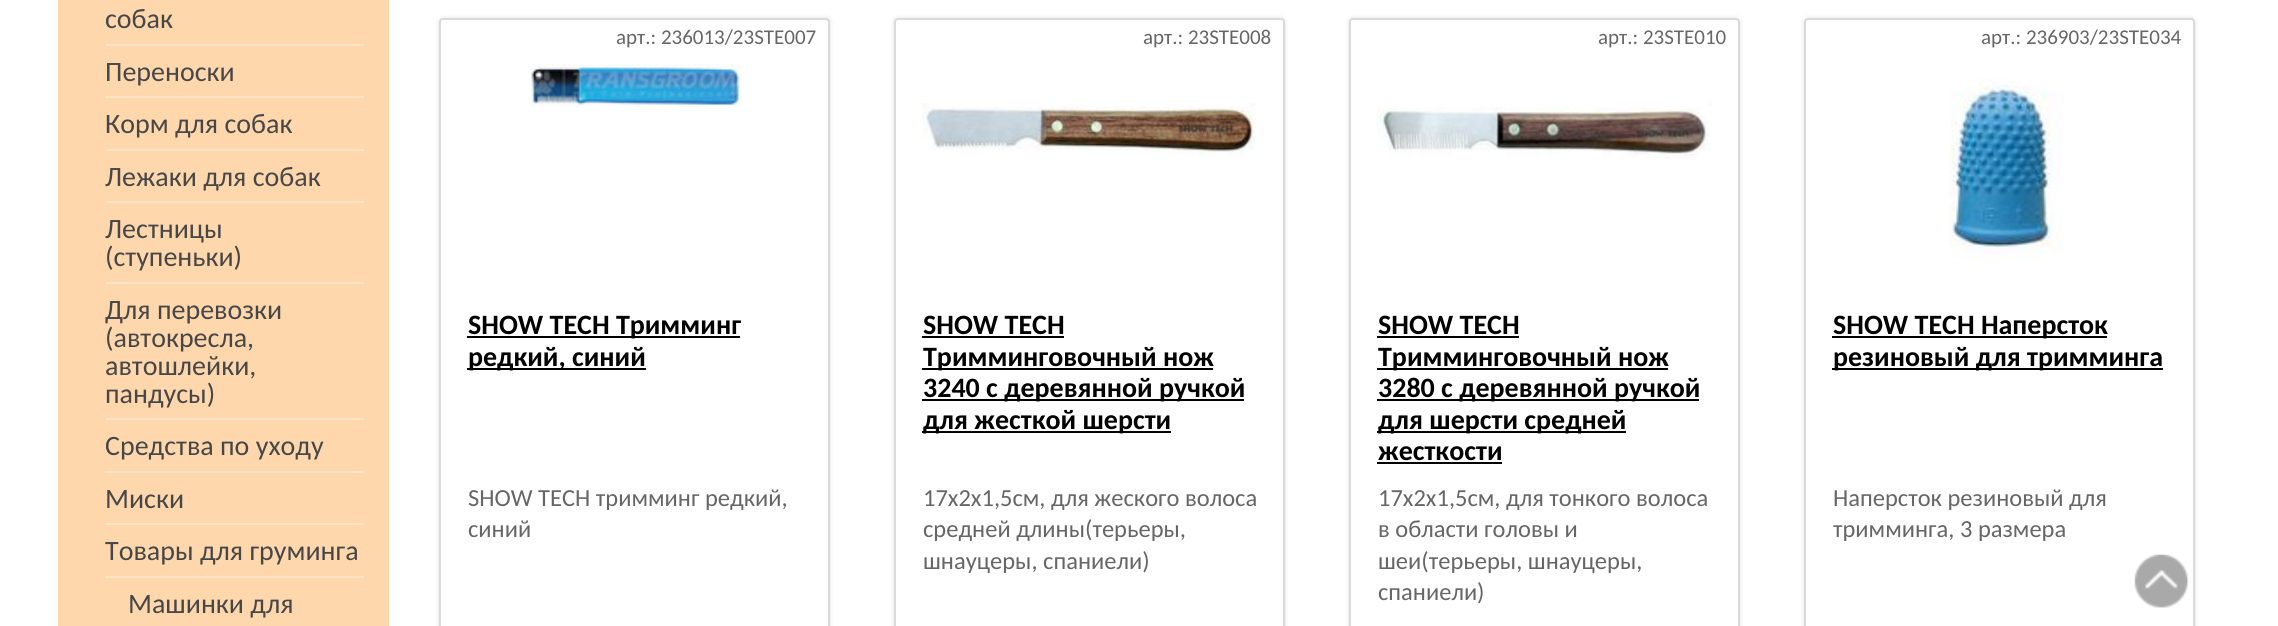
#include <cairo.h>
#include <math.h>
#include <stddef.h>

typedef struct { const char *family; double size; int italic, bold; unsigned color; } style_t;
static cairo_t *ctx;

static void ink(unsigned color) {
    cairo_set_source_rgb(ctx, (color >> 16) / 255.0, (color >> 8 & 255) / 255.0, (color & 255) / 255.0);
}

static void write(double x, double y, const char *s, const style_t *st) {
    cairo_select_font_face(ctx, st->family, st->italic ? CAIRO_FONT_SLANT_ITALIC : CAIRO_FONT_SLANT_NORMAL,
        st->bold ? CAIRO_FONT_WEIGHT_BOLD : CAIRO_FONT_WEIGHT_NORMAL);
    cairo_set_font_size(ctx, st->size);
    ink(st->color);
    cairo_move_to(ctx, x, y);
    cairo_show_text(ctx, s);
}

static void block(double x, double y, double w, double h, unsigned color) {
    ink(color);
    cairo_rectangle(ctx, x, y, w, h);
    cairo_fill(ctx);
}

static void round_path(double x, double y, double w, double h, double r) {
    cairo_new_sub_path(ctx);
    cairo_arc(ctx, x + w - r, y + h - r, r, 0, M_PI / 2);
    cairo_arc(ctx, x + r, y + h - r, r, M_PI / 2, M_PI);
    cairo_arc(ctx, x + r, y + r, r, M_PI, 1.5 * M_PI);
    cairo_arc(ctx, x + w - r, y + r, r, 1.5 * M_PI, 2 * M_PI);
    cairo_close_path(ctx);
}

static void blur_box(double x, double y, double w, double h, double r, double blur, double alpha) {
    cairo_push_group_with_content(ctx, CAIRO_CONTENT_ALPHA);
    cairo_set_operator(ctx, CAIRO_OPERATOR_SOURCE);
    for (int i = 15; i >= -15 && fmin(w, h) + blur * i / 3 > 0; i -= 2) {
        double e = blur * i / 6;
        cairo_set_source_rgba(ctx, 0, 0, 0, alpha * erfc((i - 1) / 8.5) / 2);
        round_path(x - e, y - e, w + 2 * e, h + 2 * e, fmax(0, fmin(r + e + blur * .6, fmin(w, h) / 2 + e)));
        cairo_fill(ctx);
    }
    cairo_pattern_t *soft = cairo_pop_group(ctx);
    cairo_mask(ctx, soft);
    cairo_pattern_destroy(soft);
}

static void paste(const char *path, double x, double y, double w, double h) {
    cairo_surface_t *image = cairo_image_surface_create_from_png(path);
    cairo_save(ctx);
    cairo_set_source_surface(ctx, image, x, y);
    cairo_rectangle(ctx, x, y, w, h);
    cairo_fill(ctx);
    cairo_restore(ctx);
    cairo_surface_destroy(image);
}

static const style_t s1 = {"Carlito", 28, 0, 0, 0x474747};
static const style_t s2 = {"Carlito", 21, 0, 0, 0x666666};
static const style_t s3 = {"Carlito", 28, 0, 1, 0x000000};
static const style_t s4 = {"Carlito", 24.5, 0, 0, 0x666666};

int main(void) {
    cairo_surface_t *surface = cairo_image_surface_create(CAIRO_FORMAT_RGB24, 2278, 626);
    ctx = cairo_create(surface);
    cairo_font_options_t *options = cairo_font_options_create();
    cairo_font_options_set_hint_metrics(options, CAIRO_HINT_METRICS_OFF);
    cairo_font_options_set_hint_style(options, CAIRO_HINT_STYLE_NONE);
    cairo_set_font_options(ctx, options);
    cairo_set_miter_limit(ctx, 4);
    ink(0xffffff);
    cairo_paint(ctx);
    block(58, 0, 331, 626, 0xffd7ad);
    block(105, 44, 259, 2, 0xffe3c6);
    write(105, 28, "собак", &s1);
    block(105, 96, 259, 2, 0xffe3c6);
    write(105, 81, "Переноски", &s1);
    block(105, 149, 259, 2, 0xffe3c6);
    write(105, 133, "Корм для собак", &s1);
    block(105, 201, 259, 2, 0xffe3c6);
    write(105, 186, "Лежаки для собак", &s1);
    block(105, 282, 259, 2, 0xffe3c6);
    write(105, 238, "Лестницы", &s1);
    write(105, 266, "(ступеньки)", &s1);
    block(105, 418, 259, 2, 0xffe3c6);
    write(105, 319, "Для перевозки", &s1);
    write(105, 347, "(автокресла,", &s1);
    write(105, 375, "автошлейки,", &s1);
    write(105, 403, "пандусы)", &s1);
    block(105, 471, 259, 2, 0xffe3c6);
    write(105, 455, "Средства по уходу", &s1);
    block(105, 523, 259, 2, 0xffe3c6);
    write(105, 508, "Миски", &s1);
    block(105, 576, 259, 2, 0xffe3c6);
    write(105, 560, "Товары для груминга", &s1);
    write(128, 613, "Машинки для", &s1);
    ink(0xdddddd);
    blur_box(439, 18, 391, 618, 4, 2, 1);
    ink(0xffffff);
    round_path(440, 19, 389, 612, 3);
    cairo_fill_preserve(ctx);
    ink(0xdadada);
    cairo_stroke(ctx);
    write(616, 44, "арт.: 236013/23STE007", &s2);
    block(467, 336, 273, 2, 0x000000);
    write(468, 334, "SHOW TECH Тримминг", &s3);
    block(467, 368, 179, 2, 0x000000);
    write(468, 366, "редкий, синий", &s3);
    write(468, 506, "SHOW TECH тримминг редкий,", &s4);
    write(468, 537, "синий", &s4);
    paste("pic1.png", 530, 64, 211, 43);
    ink(0xdddddd);
    blur_box(894, 18, 391, 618, 4, 2, 1);
    ink(0xffffff);
    round_path(895, 19, 389, 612, 3);
    cairo_fill_preserve(ctx);
    ink(0xdadada);
    cairo_stroke(ctx);
    write(1143, 44, "арт.: 23STE008", &s2);
    write(923, 334, "SHOW TECH", &s3);
    block(922, 336, 142, 2, 0x000000);
    block(922, 368, 291, 2, 0x000000);
    write(923, 366, "Тримминговочный нож", &s3);
    block(922, 399, 322, 2, 0x000000);
    write(923, 397, "3240 с деревянной ручкой", &s3);
    block(922, 431, 249, 2, 0x000000);
    write(923, 429, "для жесткой шерсти", &s3);
    write(923, 506, "17х2х1,5см, для жеского волоса", &s4);
    write(923, 537, "средней длины(терьеры,", &s4);
    write(923, 569, "шнауцеры, спаниели)", &s4);
    paste("pic2.png", 922, 103, 334, 54);
    ink(0xdddddd);
    blur_box(1349, 18, 391, 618, 4, 2, 1);
    ink(0xffffff);
    round_path(1350, 19, 389, 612, 3);
    cairo_fill_preserve(ctx);
    ink(0xdadada);
    cairo_stroke(ctx);
    write(1598, 44, "арт.: 23STE010", &s2);
    write(1378, 334, "SHOW TECH", &s3);
    block(1377, 336, 142, 2, 0x000000);
    block(1377, 368, 291, 2, 0x000000);
    write(1378, 366, "Тримминговочный нож", &s3);
    block(1377, 399, 322, 2, 0x000000);
    write(1378, 397, "3280 с деревянной ручкой", &s3);
    block(1377, 431, 249, 2, 0x000000);
    write(1378, 429, "для шерсти средней", &s3);
    write(1378, 460, "жесткости", &s3);
    block(1377, 462, 125, 2, 0x000000);
    write(1378, 506, "17х2х1,5см, для тонкого волоса", &s4);
    write(1378, 537, "в области головы и", &s4);
    write(1378, 569, "шеи(терьеры, шнауцеры,", &s4);
    write(1378, 600, "спаниели)", &s4);
    paste("pic3.png", 1377, 103, 334, 55);
    ink(0xdddddd);
    blur_box(1804, 18, 391, 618, 4, 2, 1);
    ink(0xffffff);
    round_path(1805, 19, 389, 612, 3);
    cairo_fill_preserve(ctx);
    ink(0xdadada);
    cairo_stroke(ctx);
    write(1981, 44, "арт.: 236903/23STE034", &s2);
    block(1832, 336, 275, 2, 0x000000);
    write(1833, 334, "SHOW TECH Наперсток", &s3);
    block(1832, 368, 331, 2, 0x000000);
    write(1833, 366, "резиновый для тримминга", &s3);
    write(1833, 506, "Наперсток резиновый для", &s4);
    write(1833, 537, "тримминга, 3 размера", &s4);
    paste("pic4.png", 1949, 79, 114, 182);
    paste("pic5.png", 2134, 554, 55, 54);
    cairo_surface_write_to_png(surface, "screenshot.png");
    cairo_font_options_destroy(options);
    cairo_destroy(ctx);
    cairo_surface_destroy(surface);
    return 0;
}
